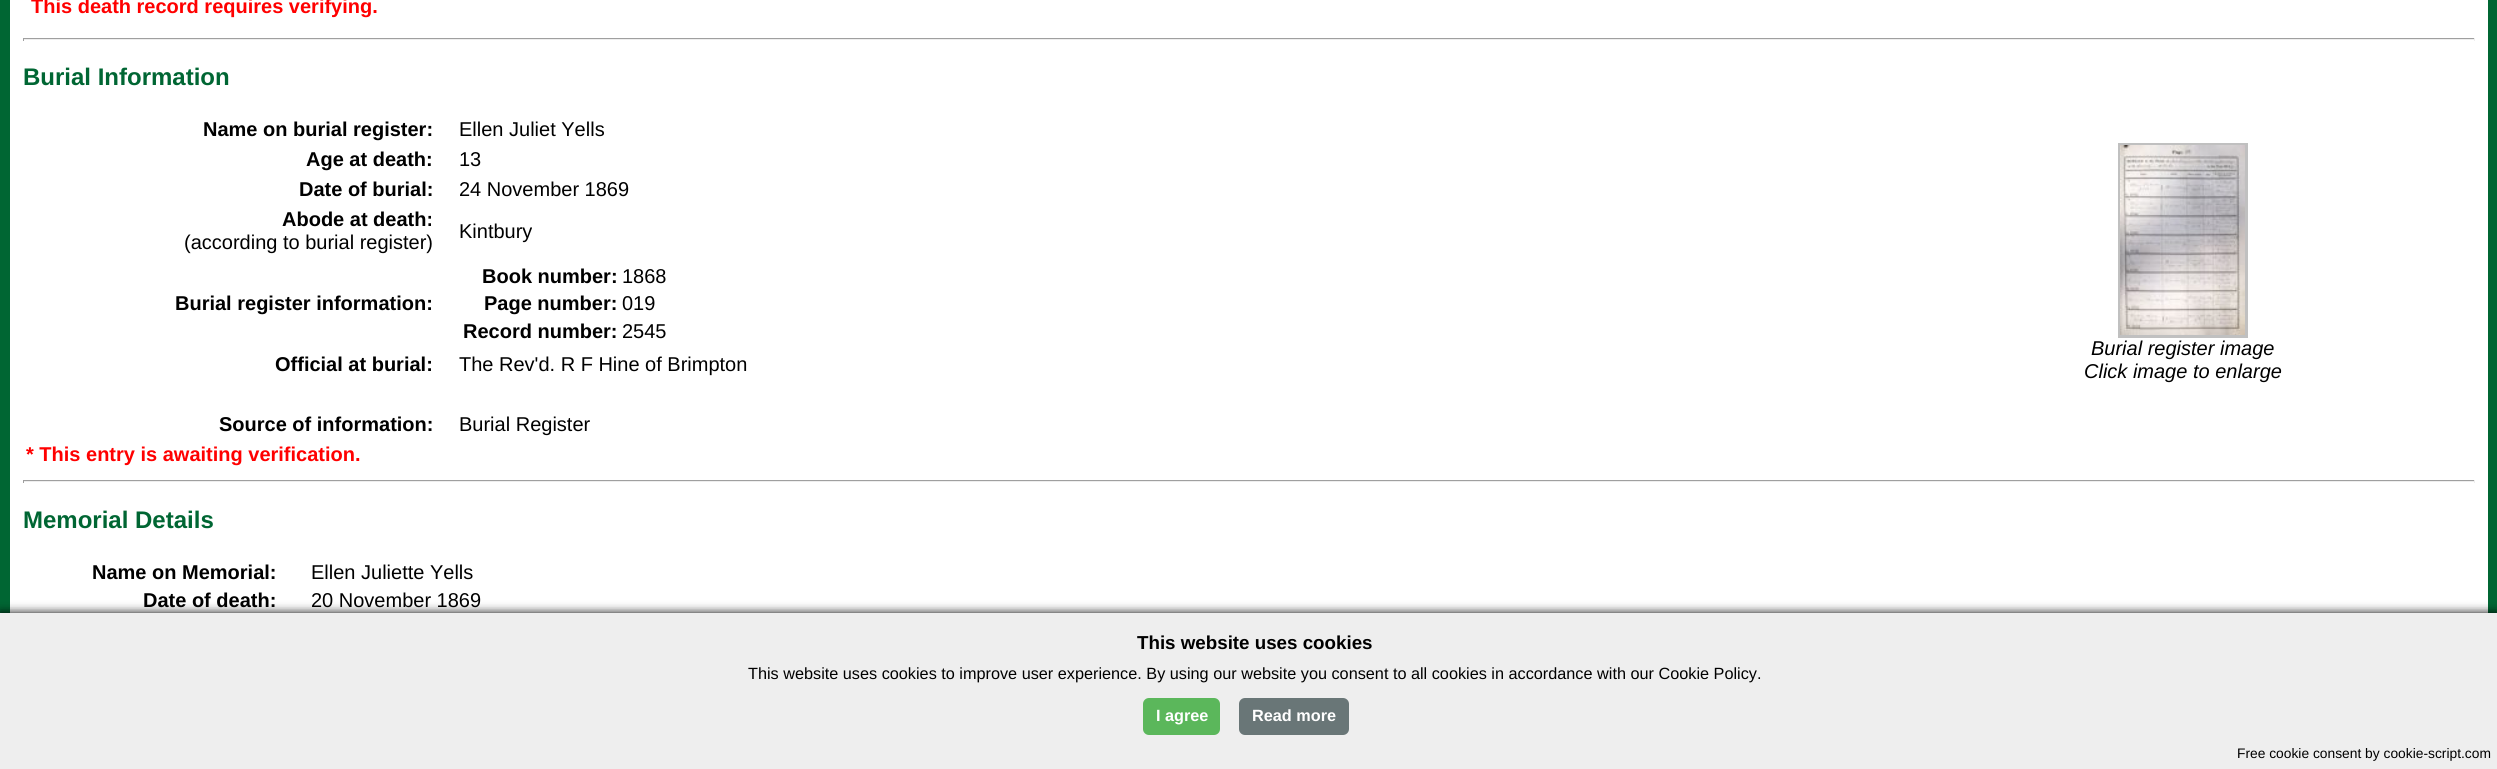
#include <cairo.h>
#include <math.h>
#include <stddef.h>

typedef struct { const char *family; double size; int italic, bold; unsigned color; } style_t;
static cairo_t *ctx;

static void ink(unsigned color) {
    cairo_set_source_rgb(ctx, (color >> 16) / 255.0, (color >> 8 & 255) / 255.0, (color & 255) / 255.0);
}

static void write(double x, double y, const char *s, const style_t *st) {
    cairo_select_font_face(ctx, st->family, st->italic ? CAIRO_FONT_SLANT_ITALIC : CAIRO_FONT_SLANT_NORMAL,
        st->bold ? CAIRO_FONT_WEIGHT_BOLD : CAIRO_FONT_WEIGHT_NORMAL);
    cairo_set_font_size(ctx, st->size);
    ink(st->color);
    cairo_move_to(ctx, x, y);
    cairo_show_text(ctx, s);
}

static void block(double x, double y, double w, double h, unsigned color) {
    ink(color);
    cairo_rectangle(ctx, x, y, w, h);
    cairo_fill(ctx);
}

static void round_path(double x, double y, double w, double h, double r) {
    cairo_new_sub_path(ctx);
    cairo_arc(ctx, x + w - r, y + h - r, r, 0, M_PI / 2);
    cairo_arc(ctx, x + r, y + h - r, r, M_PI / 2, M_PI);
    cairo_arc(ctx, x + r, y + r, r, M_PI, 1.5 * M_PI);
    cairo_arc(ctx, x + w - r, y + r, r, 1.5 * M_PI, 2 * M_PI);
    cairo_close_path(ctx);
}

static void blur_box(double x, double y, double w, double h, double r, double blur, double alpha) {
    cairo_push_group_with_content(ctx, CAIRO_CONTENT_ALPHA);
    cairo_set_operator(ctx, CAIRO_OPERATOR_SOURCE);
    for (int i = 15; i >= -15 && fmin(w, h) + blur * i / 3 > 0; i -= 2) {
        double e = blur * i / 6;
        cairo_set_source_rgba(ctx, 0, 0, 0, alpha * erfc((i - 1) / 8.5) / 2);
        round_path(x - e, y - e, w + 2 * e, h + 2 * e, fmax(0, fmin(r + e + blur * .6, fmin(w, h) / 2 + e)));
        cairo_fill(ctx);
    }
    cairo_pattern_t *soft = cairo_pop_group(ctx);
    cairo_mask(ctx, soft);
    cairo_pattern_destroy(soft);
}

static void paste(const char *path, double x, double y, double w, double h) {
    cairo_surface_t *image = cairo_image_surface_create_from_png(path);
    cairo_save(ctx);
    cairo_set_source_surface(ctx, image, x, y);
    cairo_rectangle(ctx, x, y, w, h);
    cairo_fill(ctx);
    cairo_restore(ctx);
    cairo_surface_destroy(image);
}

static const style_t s1 = {"Liberation Sans", 20, 0, 1, 0xff0000};
static const style_t s2 = {"Liberation Sans", 24, 0, 1, 0x006633};
static const style_t s3 = {"Liberation Sans", 20, 0, 1, 0x000000};
static const style_t s4 = {"Liberation Sans", 20, 0, 0, 0x000000};
static const style_t s5 = {"Liberation Sans", 20, 1, 0, 0x000000};
static const style_t s6 = {"Liberation Sans", 18.75, 0, 1, 0x000000};
static const style_t s7 = {"Liberation Sans", 16.25, 0, 0, 0x000000};
static const style_t s8 = {"Liberation Sans", 16.25, 0, 1, 0xffffff};
static const style_t s9 = {"Liberation Sans", 13.8, 0, 0, 0x000000};

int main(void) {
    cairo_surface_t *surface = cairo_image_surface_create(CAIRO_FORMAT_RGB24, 2497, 769);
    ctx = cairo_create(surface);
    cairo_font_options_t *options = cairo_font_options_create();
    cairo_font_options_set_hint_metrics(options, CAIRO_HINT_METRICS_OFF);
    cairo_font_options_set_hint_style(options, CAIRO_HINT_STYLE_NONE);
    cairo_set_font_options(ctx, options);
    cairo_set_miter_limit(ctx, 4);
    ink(0x006633);
    cairo_paint(ctx);
    block(10, 0, 2478, 613, 0xffffff);
    write(31, 13, "This death record requires verifying.", &s1);
    block(23, 38, 2452, 1, 0x9f9f9f);
    block(2474, 38, 1, 3, 0xeeeeee);
    block(23, 39, 2452, 1, 0xeeeeee);
    block(23, 38, 1, 3, 0x9f9f9f);
    write(23, 85, "Burial Information", &s2);
    write(203, 136, "Name on burial register:", &s3);
    write(459, 136, "Ellen Juliet Yells", &s4);
    cairo_rectangle(ctx, 2119.5, 144.5, 127, 192);
    ink(0xc0c0c0);
    cairo_set_line_width(ctx, 3);
    cairo_stroke(ctx);
    paste("pic1.png", 2120, 145, 125, 190);
    write(2091, 355, "Burial register image", &s5);
    write(2084, 378, "Click image to enlarge", &s5);
    write(306, 166, "Age at death:", &s3);
    write(459, 166, "13", &s4);
    write(299, 196, "Date of burial:", &s3);
    write(459, 196, "24 November 1869", &s4);
    write(282, 226, "Abode at death:", &s3);
    write(184, 249, "(according to burial register)", &s4);
    write(459, 238, "Kintbury", &s4);
    write(175, 310, "Burial register information:", &s3);
    write(482, 283, "Book number:", &s3);
    write(622, 283, "1868", &s4);
    write(484, 310, "Page number:", &s3);
    write(622, 310, "019", &s4);
    write(463, 338, "Record number:", &s3);
    write(622, 338, "2545", &s4);
    write(275, 371, "Official at burial:", &s3);
    write(459, 371, "The Rev'd. R F Hine of Brimpton", &s4);
    write(219, 431, "Source of information:", &s3);
    write(459, 431, "Burial Register", &s4);
    write(26, 461, "* This entry is awaiting verification.", &s1);
    block(23, 480, 2452, 1, 0x9f9f9f);
    block(2474, 480, 1, 3, 0xeeeeee);
    block(23, 481, 2452, 1, 0xeeeeee);
    block(23, 480, 1, 3, 0x9f9f9f);
    write(23, 528, "Memorial Details", &s2);
    write(92, 579, "Name on Memorial:", &s3);
    write(311, 579, "Ellen Juliette Yells", &s4);
    write(143, 607, "Date of death:", &s3);
    write(311, 607, "20 November 1869", &s4);
    ink(0x000000);
    blur_box(0, 613, 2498, 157, 0, 5, 1);
    block(0, 613, 2497, 156, 0xeeeeee);
    write(1137, 649, "This website uses cookies", &s6);
    write(748, 679, "This website uses cookies to improve user experience. By using our website you consent to all cookies in accordance with our Cookie Policy.", &s7);
    ink(0x5bb75b);
    round_path(1143, 698, 77, 37, 6);
    cairo_fill(ctx);
    write(1156, 721, "I agree", &s8);
    ink(0x697677);
    round_path(1239, 698, 110, 37, 6);
    cairo_fill(ctx);
    write(1252, 721, "Read more", &s8);
    write(2237, 758, "Free cookie consent by cookie-script.com", &s9);
    cairo_surface_write_to_png(surface, "screenshot.png");
    cairo_font_options_destroy(options);
    cairo_destroy(ctx);
    cairo_surface_destroy(surface);
    return 0;
}
